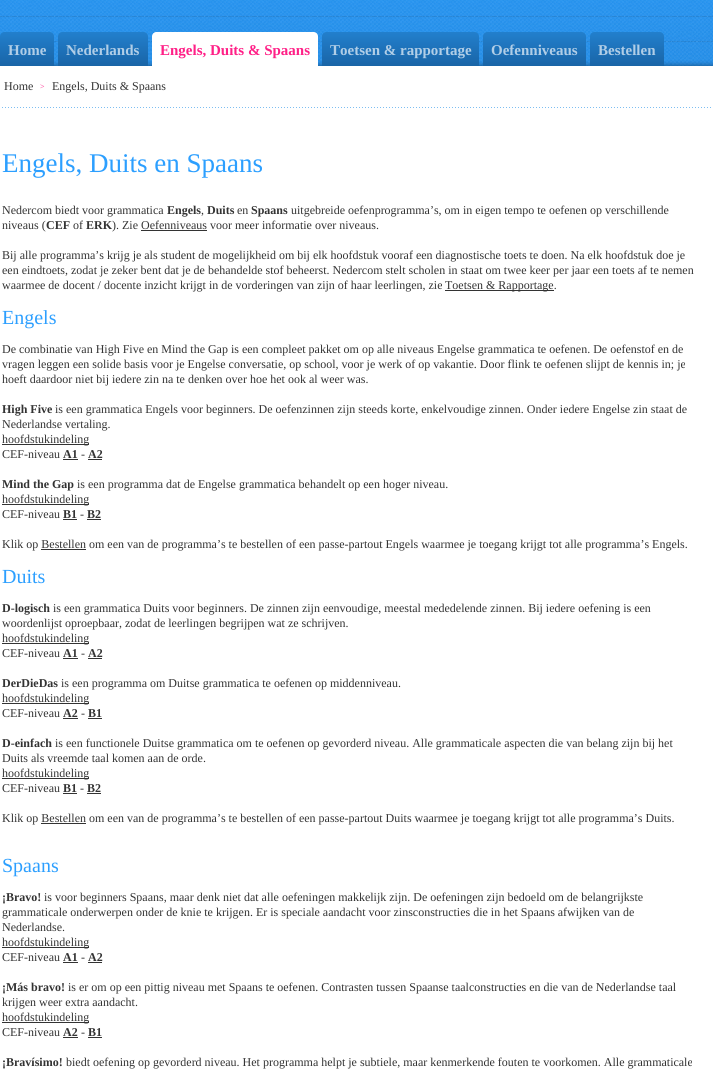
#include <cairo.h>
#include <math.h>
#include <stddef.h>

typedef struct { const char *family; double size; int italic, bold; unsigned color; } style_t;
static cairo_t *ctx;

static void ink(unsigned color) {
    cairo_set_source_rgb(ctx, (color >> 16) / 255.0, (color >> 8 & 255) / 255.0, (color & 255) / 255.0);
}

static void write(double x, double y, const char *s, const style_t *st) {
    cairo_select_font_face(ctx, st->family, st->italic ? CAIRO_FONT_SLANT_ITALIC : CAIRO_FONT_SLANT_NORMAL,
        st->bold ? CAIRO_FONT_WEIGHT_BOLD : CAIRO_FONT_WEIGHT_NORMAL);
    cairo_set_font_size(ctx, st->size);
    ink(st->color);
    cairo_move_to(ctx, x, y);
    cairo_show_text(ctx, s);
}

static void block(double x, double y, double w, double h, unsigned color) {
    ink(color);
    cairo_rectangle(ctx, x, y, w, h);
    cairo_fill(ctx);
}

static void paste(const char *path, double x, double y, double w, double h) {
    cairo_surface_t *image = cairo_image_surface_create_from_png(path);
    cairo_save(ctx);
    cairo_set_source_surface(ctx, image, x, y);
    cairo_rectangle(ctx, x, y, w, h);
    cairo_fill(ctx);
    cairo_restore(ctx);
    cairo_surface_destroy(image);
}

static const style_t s1 = {"Liberation Serif", 15, 0, 1, 0xb1cee7};
static const style_t s2 = {"Liberation Serif", 15, 0, 1, 0xff2087};
static const style_t s3 = {"Liberation Serif", 12, 0, 0, 0x333333};
static const style_t s4 = {"Liberation Serif", 8, 0, 0, 0xff298e};
static const style_t s5 = {"Liberation Serif", 27, 0, 0, 0x2c9fff};
static const style_t s6 = {"Liberation Serif", 12, 0, 1, 0x333333};
static const style_t s7 = {"Liberation Serif", 20, 0, 0, 0x2c9fff};

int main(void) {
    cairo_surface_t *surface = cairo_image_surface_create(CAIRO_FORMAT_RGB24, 713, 1076);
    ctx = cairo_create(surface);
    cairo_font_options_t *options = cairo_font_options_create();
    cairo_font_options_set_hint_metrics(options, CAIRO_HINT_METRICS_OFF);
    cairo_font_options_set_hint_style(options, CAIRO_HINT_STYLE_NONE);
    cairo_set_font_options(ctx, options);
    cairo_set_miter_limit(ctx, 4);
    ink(0xffffff);
    cairo_paint(ctx);
    paste("pic1.png", 0, 0, 713, 66);
    paste("pic2.png", 0, 32, 4, 34);
    paste("pic3.png", 4, 32, 50, 34);
    write(8, 55, "Home", &s1);
    paste("pic4.png", 58, 32, 4, 34);
    paste("pic5.png", 62, 32, 86, 34);
    write(66, 55, "Nederlands", &s1);
    paste("pic6.png", 152, 32, 4, 34);
    paste("pic7.png", 156, 32, 162, 34);
    write(160, 55, "Engels, Duits & Spaans", &s2);
    paste("pic8.png", 322, 32, 4, 34);
    paste("pic9.png", 326, 32, 153, 34);
    write(330, 55, "Toetsen & rapportage", &s1);
    paste("pic10.png", 483, 32, 4, 34);
    paste("pic11.png", 487, 32, 99, 34);
    write(491, 55, "Oefenniveaus", &s1);
    paste("pic12.png", 590, 32, 4, 34);
    paste("pic13.png", 594, 32, 70, 34);
    write(598, 55, "Bestellen", &s1);
    paste("pic14.png", 2, 107, 709, 1);
    write(4, 90, "Home", &s3);
    write(40, 89, ">", &s4);
    write(52, 90, "Engels, Duits & Spaans", &s3);
    write(2, 172, "Engels, Duits en Spaans", &s5);
    write(2, 214, "Nedercom biedt voor grammatica", &s3);
    write(167, 214, "Engels", &s6);
    write(201, 214, ",", &s3);
    write(207, 214, "Duits", &s6);
    write(237, 214, "en", &s3);
    write(251, 214, "Spaans", &s6);
    write(291, 214, "uitgebreide oefenprogramma’s, om in eigen tempo te oefenen op verschillende", &s3);
    write(2, 229, "niveaus (", &s3);
    write(46, 229, "CEF", &s6);
    write(73, 229, "of", &s3);
    write(86, 229, "ERK", &s6);
    write(112, 229, "). Zie Oefenniveaus voor meer informatie over niveaus.", &s3);
    block(141, 230, 66, 1, 0x333333);
    write(2, 259, "Bij alle programma’s krijg je als student de mogelijkheid om bij elk hoofdstuk vooraf een diagnostische toets te doen. Na elk hoofdstuk doe je", &s3);
    write(2, 274, "een eindtoets, zodat je zeker bent dat je de behandelde stof beheerst. Nedercom stelt scholen in staat om twee keer per jaar een toets af te nemen", &s3);
    write(2, 289, "waarmee de docent / docente inzicht krijgt in de vorderingen van zijn of haar leerlingen, zie", &s3);
    block(445, 290, 109, 1, 0x333333);
    write(445, 289, "Toetsen & Rapportage.", &s3);
    write(2, 324, "Engels", &s7);
    write(2, 353, "De combinatie van High Five en Mind the Gap is een compleet pakket om op alle niveaus Engelse grammatica te oefenen. De oefenstof en de", &s3);
    write(2, 368, "vragen leggen een solide basis voor je Engelse conversatie, op school, voor je werk of op vakantie. Door flink te oefenen slijpt de kennis in; je", &s3);
    write(2, 383, "hoeft daardoor niet bij iedere zin na te denken over hoe het ook al weer was.", &s3);
    write(2, 413, "High Five", &s6);
    write(55, 413, "is een grammatica Engels voor beginners. De oefenzinnen zijn steeds korte, enkelvoudige zinnen. Onder iedere Engelse zin staat de", &s3);
    write(2, 428, "Nederlandse vertaling.", &s3);
    block(2, 444, 87, 1, 0x333333);
    write(2, 443, "hoofdstukindeling", &s3);
    write(2, 458, "CEF-niveau", &s3);
    write(63, 458, "A1", &s6);
    block(63, 459, 15, 1, 0x333333);
    write(81, 458, "-", &s3);
    write(88, 458, "A2", &s6);
    block(88, 459, 14, 1, 0x333333);
    write(2, 488, "Mind the Gap", &s6);
    write(77, 488, "is een programma dat de Engelse grammatica behandelt op een hoger niveau.", &s3);
    block(2, 504, 87, 1, 0x333333);
    write(2, 503, "hoofdstukindeling", &s3);
    write(2, 518, "CEF-niveau", &s3);
    write(63, 518, "B1", &s6);
    block(63, 519, 14, 1, 0x333333);
    write(80, 518, "-", &s3);
    write(87, 518, "B2", &s6);
    block(87, 519, 14, 1, 0x333333);
    write(2, 548, "Klik op Bestellen om een van de programma’s te bestellen of een passe-partout Engels waarmee je toegang krijgt tot alle programma’s Engels.", &s3);
    block(41, 549, 45, 1, 0x333333);
    write(2, 583, "Duits", &s7);
    write(2, 612, "D-logisch", &s6);
    write(53, 612, "is een grammatica Duits voor beginners. De zinnen zijn eenvoudige, meestal mededelende zinnen. Bij iedere oefening is een", &s3);
    write(2, 627, "woordenlijst oproepbaar, zodat de leerlingen begrijpen wat ze schrijven.", &s3);
    block(2, 643, 87, 1, 0x333333);
    write(2, 642, "hoofdstukindeling", &s3);
    write(2, 657, "CEF-niveau", &s3);
    write(63, 657, "A1", &s6);
    block(63, 658, 15, 1, 0x333333);
    write(81, 657, "-", &s3);
    write(88, 657, "A2", &s6);
    block(88, 658, 14, 1, 0x333333);
    write(2, 687, "DerDieDas", &s6);
    write(61, 687, "is een programma om Duitse grammatica te oefenen op middenniveau.", &s3);
    block(2, 703, 87, 1, 0x333333);
    write(2, 702, "hoofdstukindeling", &s3);
    write(2, 717, "CEF-niveau", &s3);
    write(63, 717, "A2", &s6);
    block(63, 718, 15, 1, 0x333333);
    write(81, 717, "-", &s3);
    write(88, 717, "B1", &s6);
    block(88, 718, 14, 1, 0x333333);
    write(2, 747, "D-einfach", &s6);
    write(55, 747, "is een functionele Duitse grammatica om te oefenen op gevorderd niveau. Alle grammaticale aspecten die van belang zijn bij het", &s3);
    write(2, 762, "Duits als vreemde taal komen aan de orde.", &s3);
    block(2, 778, 87, 1, 0x333333);
    write(2, 777, "hoofdstukindeling", &s3);
    write(2, 792, "CEF-niveau", &s3);
    write(63, 792, "B1", &s6);
    block(63, 793, 14, 1, 0x333333);
    write(80, 792, "-", &s3);
    write(87, 792, "B2", &s6);
    block(87, 793, 14, 1, 0x333333);
    write(2, 822, "Klik op Bestellen om een van de programma’s te bestellen of een passe-partout Duits waarmee je toegang krijgt tot alle programma’s Duits.", &s3);
    block(41, 823, 45, 1, 0x333333);
    write(2, 872, "Spaans", &s7);
    write(2, 901, "¡Bravo!", &s6);
    write(44, 901, "is voor beginners Spaans, maar denk niet dat alle oefeningen makkelijk zijn. De oefeningen zijn bedoeld om de belangrijkste", &s3);
    write(2, 916, "grammaticale onderwerpen onder de knie te krijgen. Er is speciale aandacht voor zinsconstructies die in het Spaans afwijken van de", &s3);
    write(2, 931, "Nederlandse.", &s3);
    block(2, 947, 87, 1, 0x333333);
    write(2, 946, "hoofdstukindeling", &s3);
    write(2, 961, "CEF-niveau", &s3);
    write(63, 961, "A1", &s6);
    block(63, 962, 15, 1, 0x333333);
    write(81, 961, "-", &s3);
    write(88, 961, "A2", &s6);
    block(88, 962, 14, 1, 0x333333);
    write(2, 991, "¡Más bravo!", &s6);
    write(68, 991, "is er om op een pittig niveau met Spaans te oefenen. Contrasten tussen Spaanse taalconstructies en die van de Nederlandse taal", &s3);
    write(2, 1006, "krijgen weer extra aandacht.", &s3);
    block(2, 1022, 87, 1, 0x333333);
    write(2, 1021, "hoofdstukindeling", &s3);
    write(2, 1036, "CEF-niveau", &s3);
    write(63, 1036, "A2", &s6);
    block(63, 1037, 15, 1, 0x333333);
    write(81, 1036, "-", &s3);
    write(88, 1036, "B1", &s6);
    block(88, 1037, 14, 1, 0x333333);
    write(2, 1066, "¡Bravísimo!", &s6);
    write(66, 1066, "biedt oefening op gevorderd niveau. Het programma helpt je subtiele, maar kenmerkende fouten te voorkomen. Alle grammaticale", &s3);
    cairo_surface_write_to_png(surface, "screenshot.png");
    cairo_font_options_destroy(options);
    cairo_destroy(ctx);
    cairo_surface_destroy(surface);
    return 0;
}
